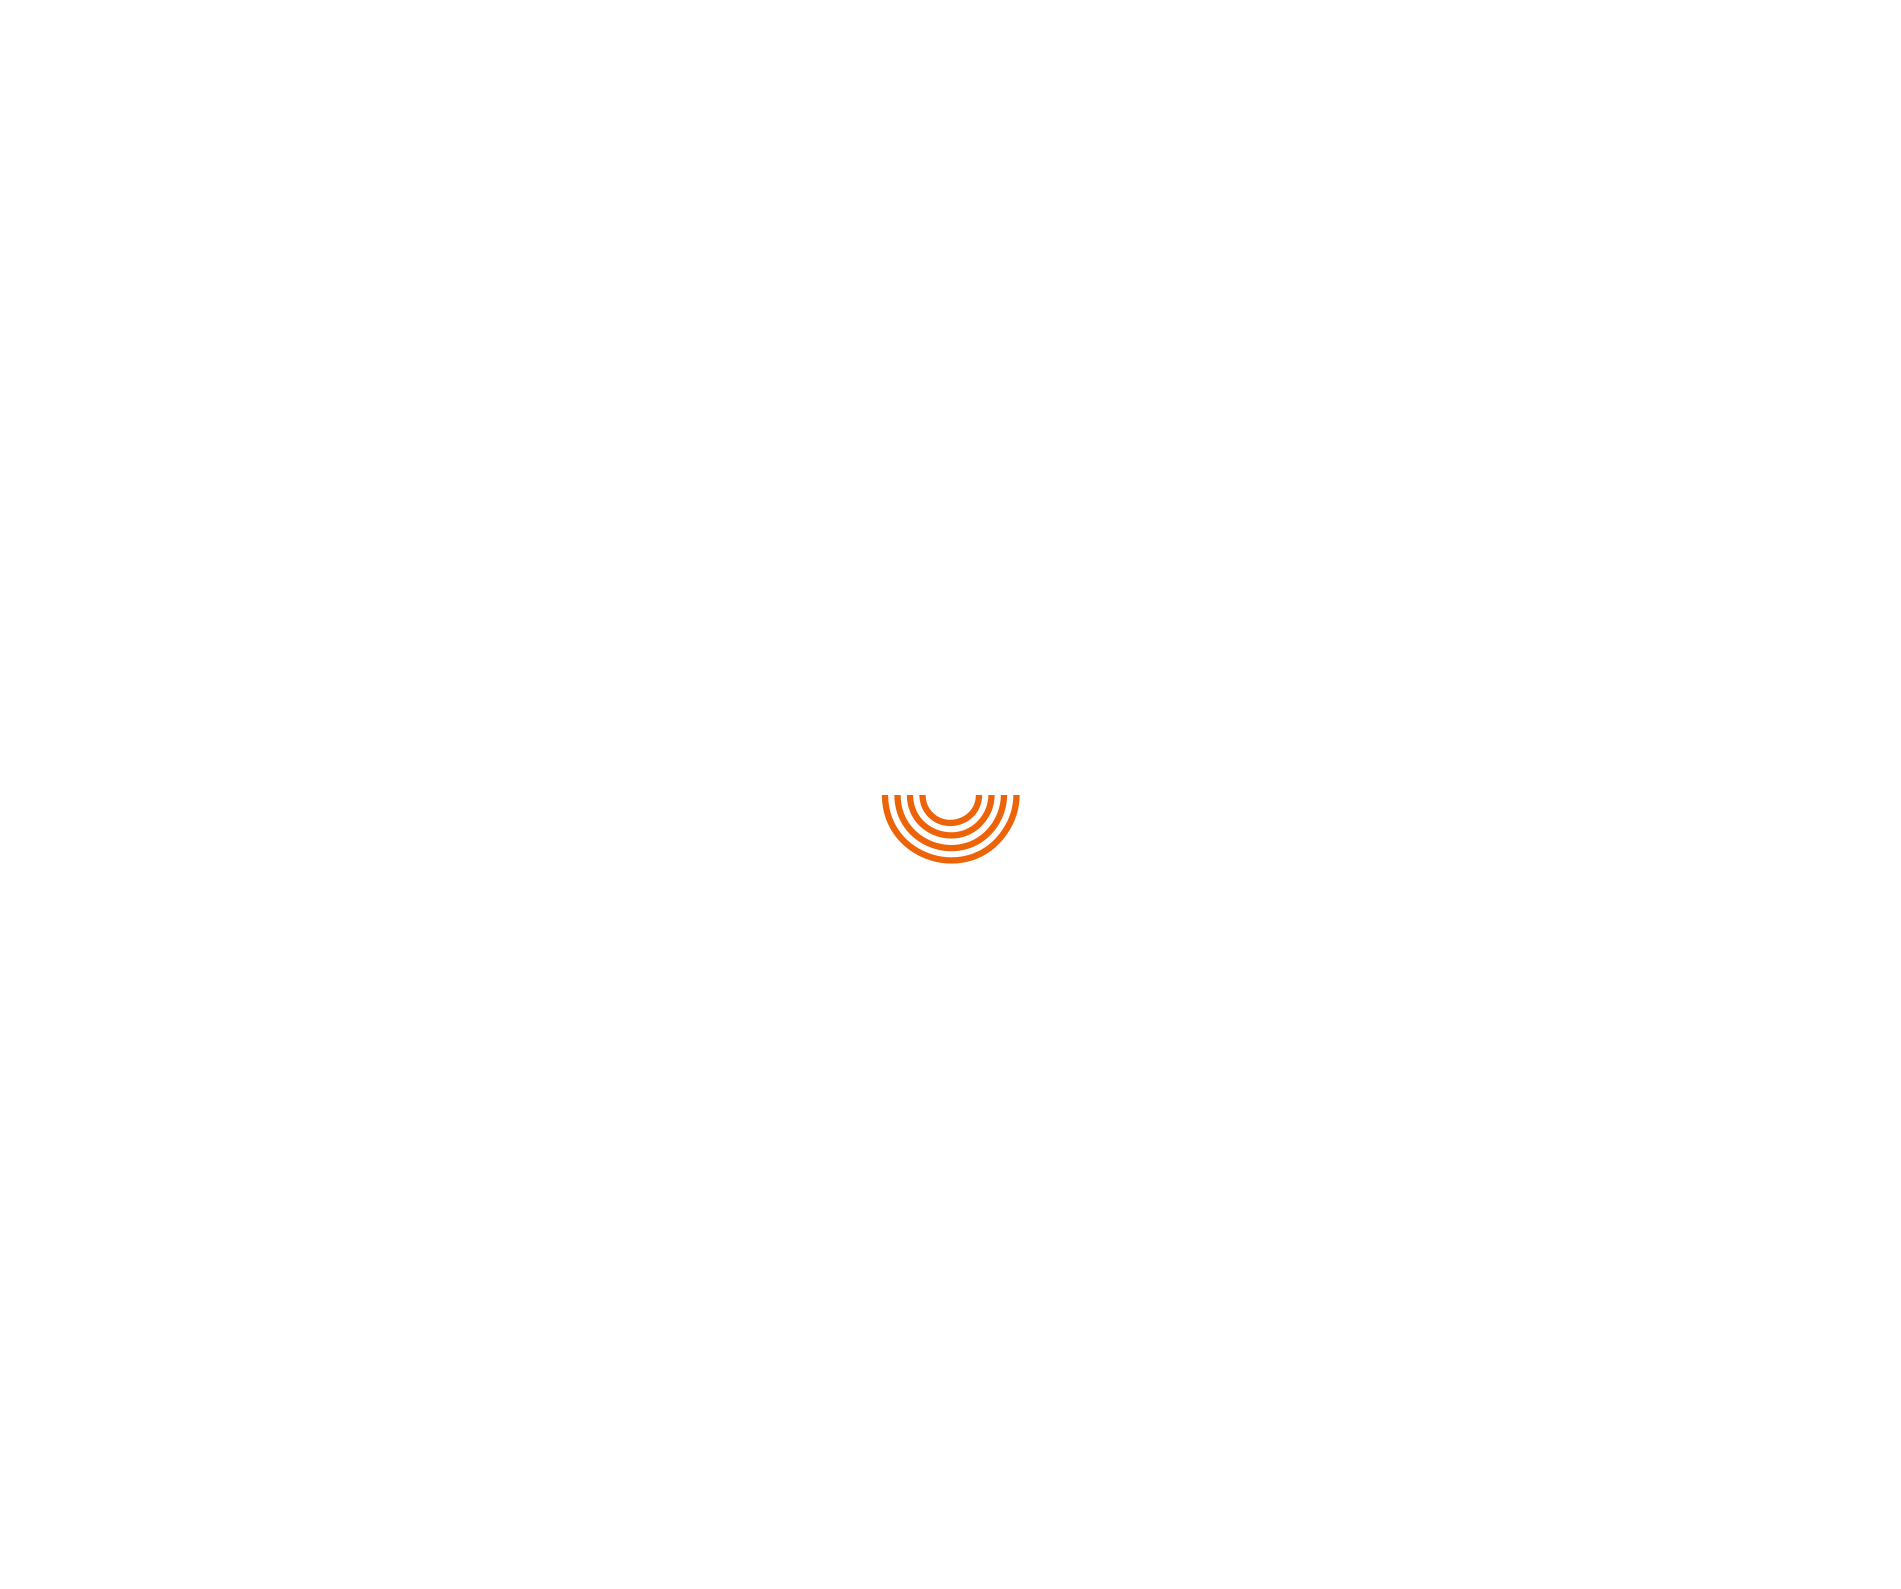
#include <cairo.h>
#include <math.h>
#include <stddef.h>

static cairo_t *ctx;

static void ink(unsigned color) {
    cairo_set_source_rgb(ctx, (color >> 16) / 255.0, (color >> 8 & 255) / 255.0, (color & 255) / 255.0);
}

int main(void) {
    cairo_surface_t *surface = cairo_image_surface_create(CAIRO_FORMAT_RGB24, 1901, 1589);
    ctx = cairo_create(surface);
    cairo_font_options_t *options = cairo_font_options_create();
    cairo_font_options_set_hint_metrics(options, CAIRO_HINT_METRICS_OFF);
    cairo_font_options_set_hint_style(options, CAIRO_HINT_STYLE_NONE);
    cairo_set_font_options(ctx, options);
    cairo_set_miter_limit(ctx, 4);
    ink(0xffffff);
    cairo_paint(ctx);
    cairo_new_path(ctx);
    cairo_move_to(ctx, 1016.5, 795);
    cairo_curve_to(ctx, 1016.5, 808, 1012.5, 820.5, 1005, 831.5);
    cairo_curve_to(ctx, 969.5, 885, 885, 859.5, 885, 795);
    ink(0xed6307);
    cairo_set_line_width(ctx, 6.3);
    cairo_stroke(ctx);
    cairo_new_path(ctx);
    cairo_move_to(ctx, 1004, 795);
    cairo_curve_to(ctx, 1004, 805.5, 1000.5, 816, 995, 824.5);
    cairo_curve_to(ctx, 966, 868, 897.5, 847.5, 897.5, 795);
    cairo_stroke(ctx);
    cairo_new_path(ctx);
    cairo_move_to(ctx, 991.5, 795);
    cairo_curve_to(ctx, 991.5, 803, 989, 811, 984.5, 817.5);
    cairo_curve_to(ctx, 962.5, 850.5, 910, 835, 910, 795);
    cairo_stroke(ctx);
    cairo_new_path(ctx);
    cairo_move_to(ctx, 979, 795);
    cairo_curve_to(ctx, 979, 822.5, 942.5, 833.5, 927, 810.5);
    cairo_curve_to(ctx, 924, 806, 922.5, 800.5, 922.5, 795);
    cairo_stroke(ctx);
    cairo_surface_write_to_png(surface, "screenshot.png");
    cairo_font_options_destroy(options);
    cairo_destroy(ctx);
    cairo_surface_destroy(surface);
    return 0;
}
